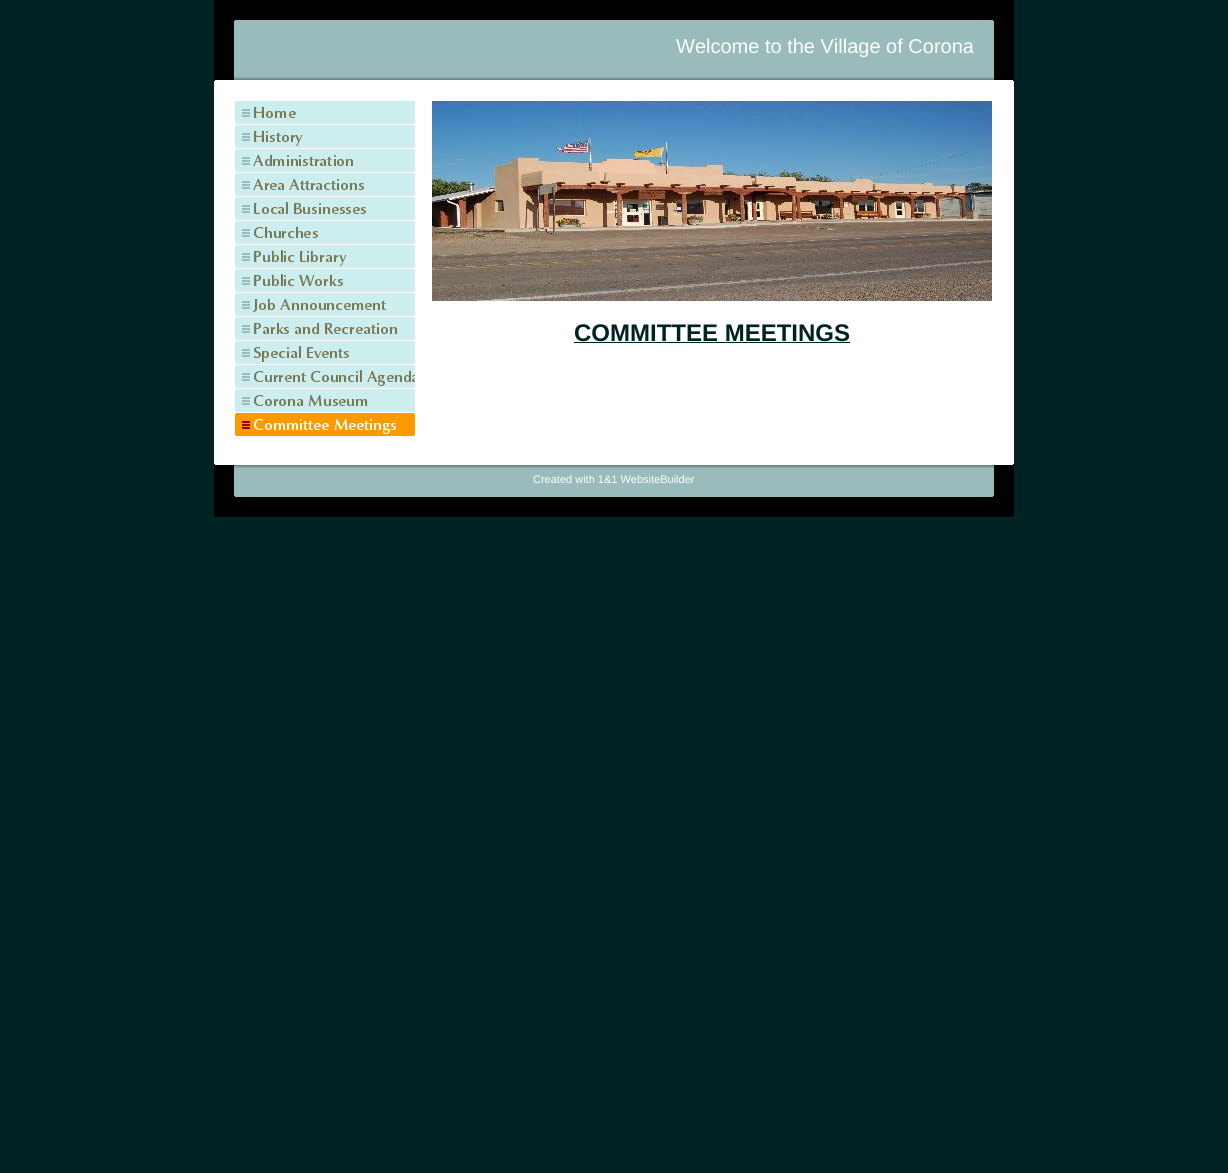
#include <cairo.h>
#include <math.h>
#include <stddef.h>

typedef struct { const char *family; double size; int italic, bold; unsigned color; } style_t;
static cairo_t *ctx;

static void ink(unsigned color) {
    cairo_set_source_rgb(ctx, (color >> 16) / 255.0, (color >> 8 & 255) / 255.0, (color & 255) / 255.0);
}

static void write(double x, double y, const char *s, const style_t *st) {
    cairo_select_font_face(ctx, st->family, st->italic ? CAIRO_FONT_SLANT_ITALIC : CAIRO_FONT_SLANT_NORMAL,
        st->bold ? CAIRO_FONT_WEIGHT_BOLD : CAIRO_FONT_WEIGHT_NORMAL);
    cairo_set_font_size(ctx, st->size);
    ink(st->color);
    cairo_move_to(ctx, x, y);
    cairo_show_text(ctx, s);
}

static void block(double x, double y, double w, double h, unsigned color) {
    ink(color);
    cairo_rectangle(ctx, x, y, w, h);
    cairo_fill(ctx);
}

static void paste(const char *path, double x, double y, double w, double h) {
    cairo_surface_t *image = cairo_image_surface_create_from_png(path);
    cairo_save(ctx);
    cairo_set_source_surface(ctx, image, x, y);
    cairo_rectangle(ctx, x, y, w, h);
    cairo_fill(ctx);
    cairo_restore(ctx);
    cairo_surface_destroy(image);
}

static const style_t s1 = {"Liberation Sans", 20, 0, 0, 0xffffff};
static const style_t s2 = {"Liberation Sans", 24, 0, 1, 0x002222};
static const style_t s3 = {"Liberation Sans", 11, 0, 0, 0xffffff};

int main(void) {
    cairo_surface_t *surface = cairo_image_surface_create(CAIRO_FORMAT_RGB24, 1228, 1173);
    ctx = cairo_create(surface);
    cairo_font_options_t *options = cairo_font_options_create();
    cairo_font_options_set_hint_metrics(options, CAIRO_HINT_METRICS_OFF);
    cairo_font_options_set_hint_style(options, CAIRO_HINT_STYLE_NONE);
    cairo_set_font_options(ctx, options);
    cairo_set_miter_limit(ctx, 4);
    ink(0x002222);
    cairo_paint(ctx);
    block(214, 81, 800, 383, 0xffffff);
    paste("pic1.png", 214, 0, 800, 81);
    write(676, 53, "Welcome to the Village of Corona", &s1);
    paste("pic2.png", 235, 101, 180, 23);
    paste("pic3.png", 235, 125, 180, 23);
    paste("pic4.png", 235, 149, 180, 23);
    paste("pic5.png", 235, 173, 180, 23);
    paste("pic6.png", 235, 197, 180, 23);
    paste("pic7.png", 235, 221, 180, 23);
    paste("pic8.png", 235, 245, 180, 23);
    paste("pic9.png", 235, 269, 180, 23);
    paste("pic10.png", 235, 293, 180, 23);
    paste("pic11.png", 235, 317, 180, 23);
    paste("pic12.png", 235, 341, 180, 23);
    paste("pic13.png", 235, 365, 180, 23);
    paste("pic14.png", 235, 389, 180, 23);
    paste("pic15.png", 235, 413, 180, 23);
    paste("pic16.png", 432, 101, 560, 200);
    write(574, 341, "COMMITTEE MEETINGS", &s2);
    block(574, 342, 276, 1, 0x002222);
    paste("pic17.png", 214, 464, 800, 53);
    write(533, 483, "Created with 1&1 WebsiteBuilder", &s3);
    cairo_surface_write_to_png(surface, "screenshot.png");
    cairo_font_options_destroy(options);
    cairo_destroy(ctx);
    cairo_surface_destroy(surface);
    return 0;
}
